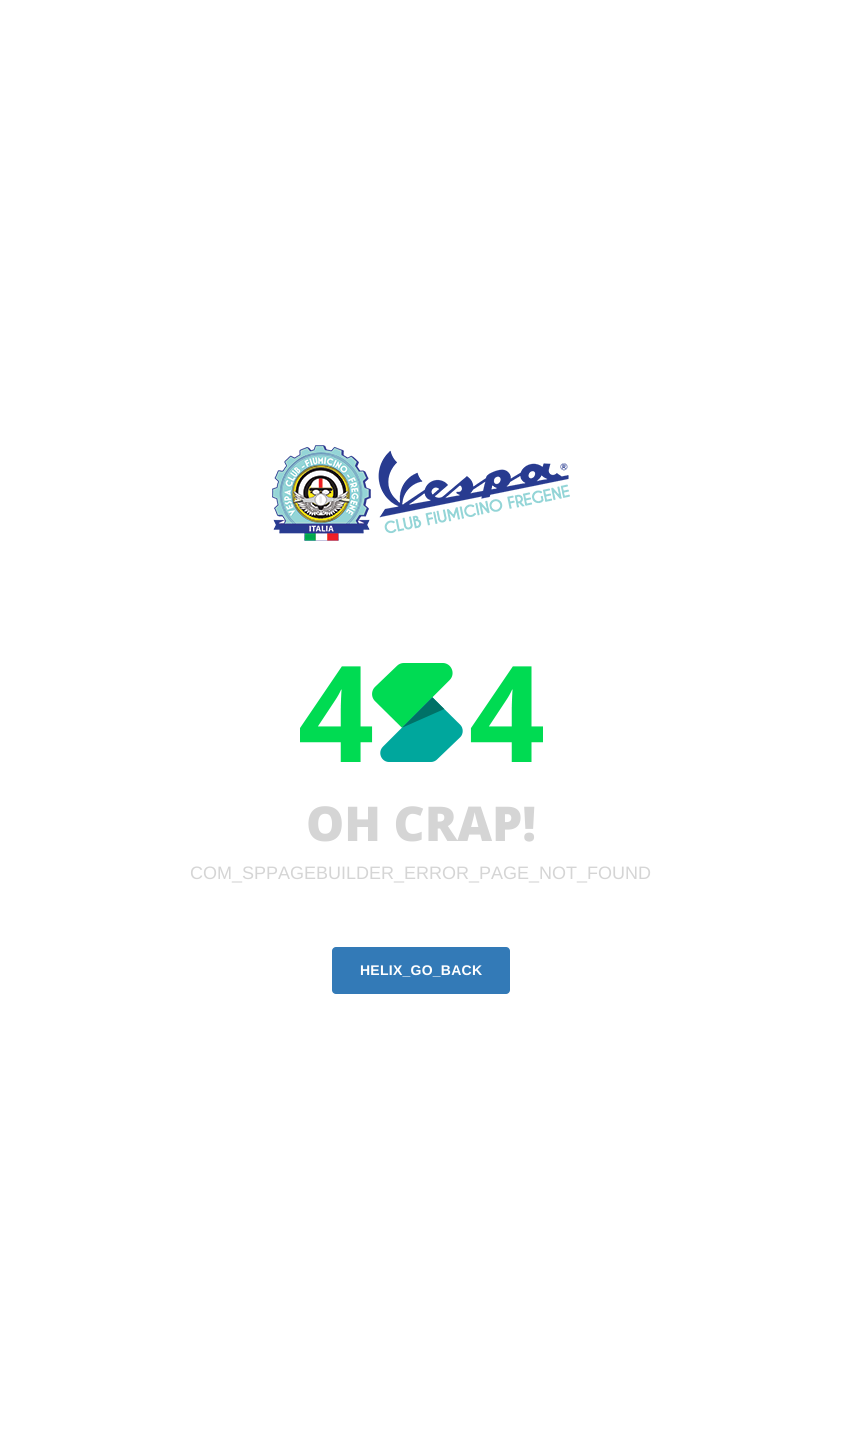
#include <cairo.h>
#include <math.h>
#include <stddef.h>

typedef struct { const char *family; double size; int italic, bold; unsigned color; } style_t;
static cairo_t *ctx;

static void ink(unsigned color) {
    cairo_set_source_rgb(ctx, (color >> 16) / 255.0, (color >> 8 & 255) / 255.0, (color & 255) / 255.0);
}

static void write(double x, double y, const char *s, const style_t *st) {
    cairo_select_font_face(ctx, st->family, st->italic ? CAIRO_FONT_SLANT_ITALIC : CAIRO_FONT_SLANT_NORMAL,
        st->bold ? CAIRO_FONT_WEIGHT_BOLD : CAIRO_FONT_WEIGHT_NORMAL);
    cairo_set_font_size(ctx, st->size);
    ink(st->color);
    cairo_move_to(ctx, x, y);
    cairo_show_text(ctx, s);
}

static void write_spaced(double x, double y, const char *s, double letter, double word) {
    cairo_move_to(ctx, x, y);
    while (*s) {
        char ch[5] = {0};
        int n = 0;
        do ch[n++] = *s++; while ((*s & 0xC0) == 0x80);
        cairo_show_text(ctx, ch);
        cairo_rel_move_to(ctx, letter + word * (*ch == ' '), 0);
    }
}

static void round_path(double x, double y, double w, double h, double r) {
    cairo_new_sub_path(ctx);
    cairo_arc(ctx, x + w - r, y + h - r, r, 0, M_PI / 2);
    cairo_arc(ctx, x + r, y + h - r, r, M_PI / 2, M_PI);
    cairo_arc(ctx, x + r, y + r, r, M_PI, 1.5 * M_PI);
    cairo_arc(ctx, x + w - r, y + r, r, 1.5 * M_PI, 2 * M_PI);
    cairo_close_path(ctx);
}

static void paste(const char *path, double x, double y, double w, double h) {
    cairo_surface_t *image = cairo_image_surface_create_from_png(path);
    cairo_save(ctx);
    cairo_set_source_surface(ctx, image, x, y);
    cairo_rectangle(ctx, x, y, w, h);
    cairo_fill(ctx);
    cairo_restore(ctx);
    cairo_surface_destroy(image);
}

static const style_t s1 = {"Open Sans ExtraBold", 48, 0, 0, 0xd5d5d5};
static const style_t s2 = {"Liberation Sans", 18, 0, 0, 0xd5d5d5};

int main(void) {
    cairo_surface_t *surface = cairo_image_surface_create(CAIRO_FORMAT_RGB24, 842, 1437);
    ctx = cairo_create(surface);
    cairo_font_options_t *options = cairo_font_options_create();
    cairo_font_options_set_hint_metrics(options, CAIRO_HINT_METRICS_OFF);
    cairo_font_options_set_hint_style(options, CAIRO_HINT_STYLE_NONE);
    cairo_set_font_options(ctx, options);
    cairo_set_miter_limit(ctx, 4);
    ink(0xffffff);
    cairo_paint(ctx);
    paste("pic1.png", 272, 445, 298, 96);
    paste("pic2.png", 300, 663, 243, 99);
    write(306, 841, "OH CRAP!", &s1);
    write(190, 879, "COM_SPPAGEBUILDER_ERROR_PAGE_NOT_FOUND", &s2);
    ink(0x337ab7);
    round_path(332, 947, 178, 47, 4);
    cairo_fill(ctx);
    cairo_select_font_face(ctx, "Liberation Sans", CAIRO_FONT_SLANT_NORMAL, CAIRO_FONT_WEIGHT_BOLD);
    cairo_set_font_size(ctx, 14);
    ink(0xffffff);
    write_spaced(360, 975, "HELIX_GO_BACK", 0.25, 0);
    cairo_surface_write_to_png(surface, "screenshot.png");
    cairo_font_options_destroy(options);
    cairo_destroy(ctx);
    cairo_surface_destroy(surface);
    return 0;
}
